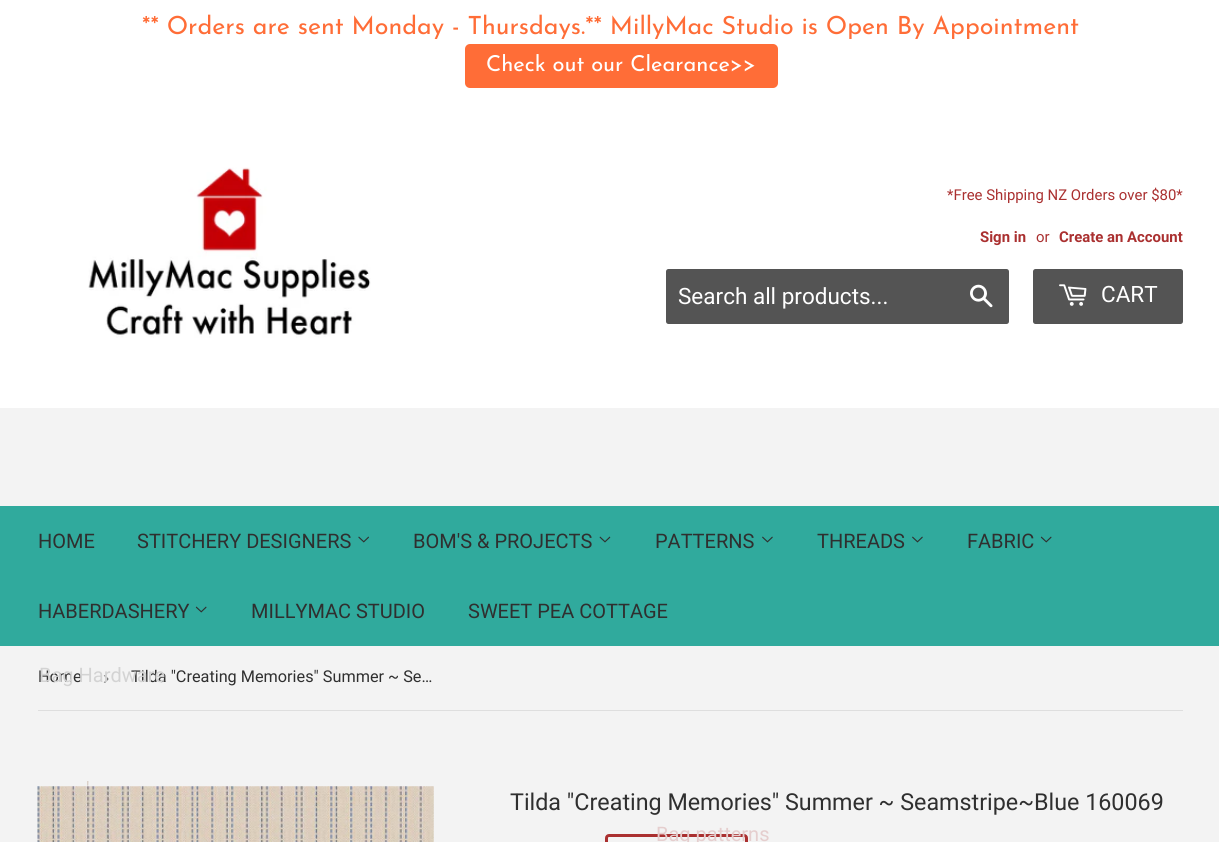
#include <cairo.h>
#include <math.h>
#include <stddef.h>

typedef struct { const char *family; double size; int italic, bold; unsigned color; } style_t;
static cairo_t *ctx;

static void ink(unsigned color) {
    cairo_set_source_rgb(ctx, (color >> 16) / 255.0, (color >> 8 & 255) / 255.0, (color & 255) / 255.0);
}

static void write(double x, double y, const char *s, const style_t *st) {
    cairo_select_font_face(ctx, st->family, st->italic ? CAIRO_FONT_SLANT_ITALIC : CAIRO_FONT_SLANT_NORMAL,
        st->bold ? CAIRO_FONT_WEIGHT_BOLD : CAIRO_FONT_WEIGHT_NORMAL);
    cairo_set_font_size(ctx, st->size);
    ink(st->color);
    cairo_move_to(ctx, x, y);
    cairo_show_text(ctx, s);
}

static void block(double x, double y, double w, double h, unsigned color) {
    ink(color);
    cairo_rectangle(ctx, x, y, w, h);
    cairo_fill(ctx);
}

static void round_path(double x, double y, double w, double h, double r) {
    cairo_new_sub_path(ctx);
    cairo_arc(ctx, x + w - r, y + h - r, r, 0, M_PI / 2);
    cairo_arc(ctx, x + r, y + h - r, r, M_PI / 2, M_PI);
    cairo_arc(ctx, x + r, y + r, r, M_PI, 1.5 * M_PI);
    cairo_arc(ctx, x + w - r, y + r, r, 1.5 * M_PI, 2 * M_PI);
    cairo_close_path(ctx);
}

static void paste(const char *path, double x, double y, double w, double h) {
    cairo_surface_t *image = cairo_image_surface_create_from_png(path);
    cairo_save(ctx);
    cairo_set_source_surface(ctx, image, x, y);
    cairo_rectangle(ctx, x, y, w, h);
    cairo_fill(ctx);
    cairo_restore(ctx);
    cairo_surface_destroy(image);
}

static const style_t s1 = {"Josefin Sans Thin", 25, 0, 0, 0xff6d37};
static const style_t s2 = {"Josefin Sans Thin", 21.9, 0, 0, 0xffffff};
static const style_t s3 = {"Roboto", 14.9, 0, 0, 0xaa3030};
static const style_t s4 = {"Roboto", 14.9, 0, 1, 0xaa3030};
static const style_t s5 = {"Roboto", 22.5, 0, 0, 0xffffff};
static const style_t s6 = {"Roboto", 20, 0, 0, 0x2f2f2f};
static const style_t s7 = {"Roboto", 20, 0, 0, 0xe5cece};
static const style_t s8 = {"Roboto", 16.25, 0, 0, 0x2f2f2f};
static const style_t s9 = {"Liberation Sans", 19, 0, 0, 0x767676};
static const style_t s10 = {"Roboto", 20, 0, 0, 0xd3d3d3};
static const style_t s11 = {"Roboto", 20, 0, 0, 0xdad0c7};
static const style_t s12 = {"Roboto", 23.3, 0, 0, 0x2f2f2f};

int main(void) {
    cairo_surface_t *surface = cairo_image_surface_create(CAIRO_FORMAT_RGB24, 1219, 842);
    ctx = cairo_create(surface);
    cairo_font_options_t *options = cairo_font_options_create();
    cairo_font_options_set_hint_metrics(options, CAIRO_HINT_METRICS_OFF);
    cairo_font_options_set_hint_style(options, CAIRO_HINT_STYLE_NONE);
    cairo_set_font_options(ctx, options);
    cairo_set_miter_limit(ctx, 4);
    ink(0xf3f3f3);
    cairo_paint(ctx);
    block(0, 0, 1219, 408, 0xffffff);
    write(142, 34, "** Orders are sent Monday - Thursdays.** MillyMac Studio is Open By Appointment", &s1);
    round_path(465, 44, 313, 44, 5);
    cairo_fill(ctx);
    write(486, 71, "Check out our Clearance>>", &s2);
    paste("pic1.png", 88, 167, 283, 171);
    write(947, 200, "*Free Shipping NZ Orders over $80*", &s3);
    write(980, 242, "Sign in", &s4);
    write(1036, 242, "or", &s3);
    write(1059, 242, "Create an Account", &s4);
    ink(0x545454);
    round_path(666, 269, 343, 55, 2.5);
    cairo_fill(ctx);
    write(678, 304, "Search all products...", &s5);
    paste("pic2.png", 970, 284, 23, 24);
    ink(0x545454);
    round_path(1033, 269, 150, 55, 2.5);
    cairo_fill(ctx);
    paste("pic3.png", 1059, 284, 28, 22);
    write(1101, 302, "CART", &s5);
    block(0, 506, 1219, 140, 0x30aa9d);
    write(38, 548, "HOME", &s6);
    write(137, 548, "STITCHERY DESIGNERS", &s6);
    paste("pic4.png", 358, 536, 11, 7);
    write(413, 548, "BOM'S & PROJECTS", &s6);
    paste("pic5.png", 599, 536, 12, 7);
    write(655, 548, "PATTERNS", &s6);
    paste("pic6.png", 762, 536, 11, 7);
    round_path(606.5, 835.5, 140, 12, 2.5);
    ink(0xaa3030);
    cairo_set_line_width(ctx, 3);
    cairo_stroke(ctx);
    write(656, 841, "Bag patterns", &s7);
    write(817, 548, "THREADS", &s6);
    paste("pic6.png", 912, 536, 11, 7);
    write(967, 548, "FABRIC", &s6);
    paste("pic7.png", 1040, 536, 12, 7);
    write(38, 618, "HABERDASHERY", &s6);
    paste("pic7.png", 195, 606, 12, 7);
    write(38, 682, "Home", &s8);
    write(103, 684, "›", &s9);
    write(131, 682, "Tilda \"Creating Memories\" Summer ~ Se…", &s8);
    write(39, 682, "Bag Hardware", &s10);
    write(86, 796, "'", &s11);
    write(251, 618, "MILLYMAC STUDIO", &s6);
    write(468, 618, "SWEET PEA COTTAGE", &s6);
    block(38, 710, 1145, 1, 0xdedede);
    paste("pic8.png", 37, 786, 397, 56);
    write(510, 810, "Tilda \"Creating Memories\" Summer ~ Seamstripe~Blue 160069", &s12);
    cairo_surface_write_to_png(surface, "screenshot.png");
    cairo_font_options_destroy(options);
    cairo_destroy(ctx);
    cairo_surface_destroy(surface);
    return 0;
}
